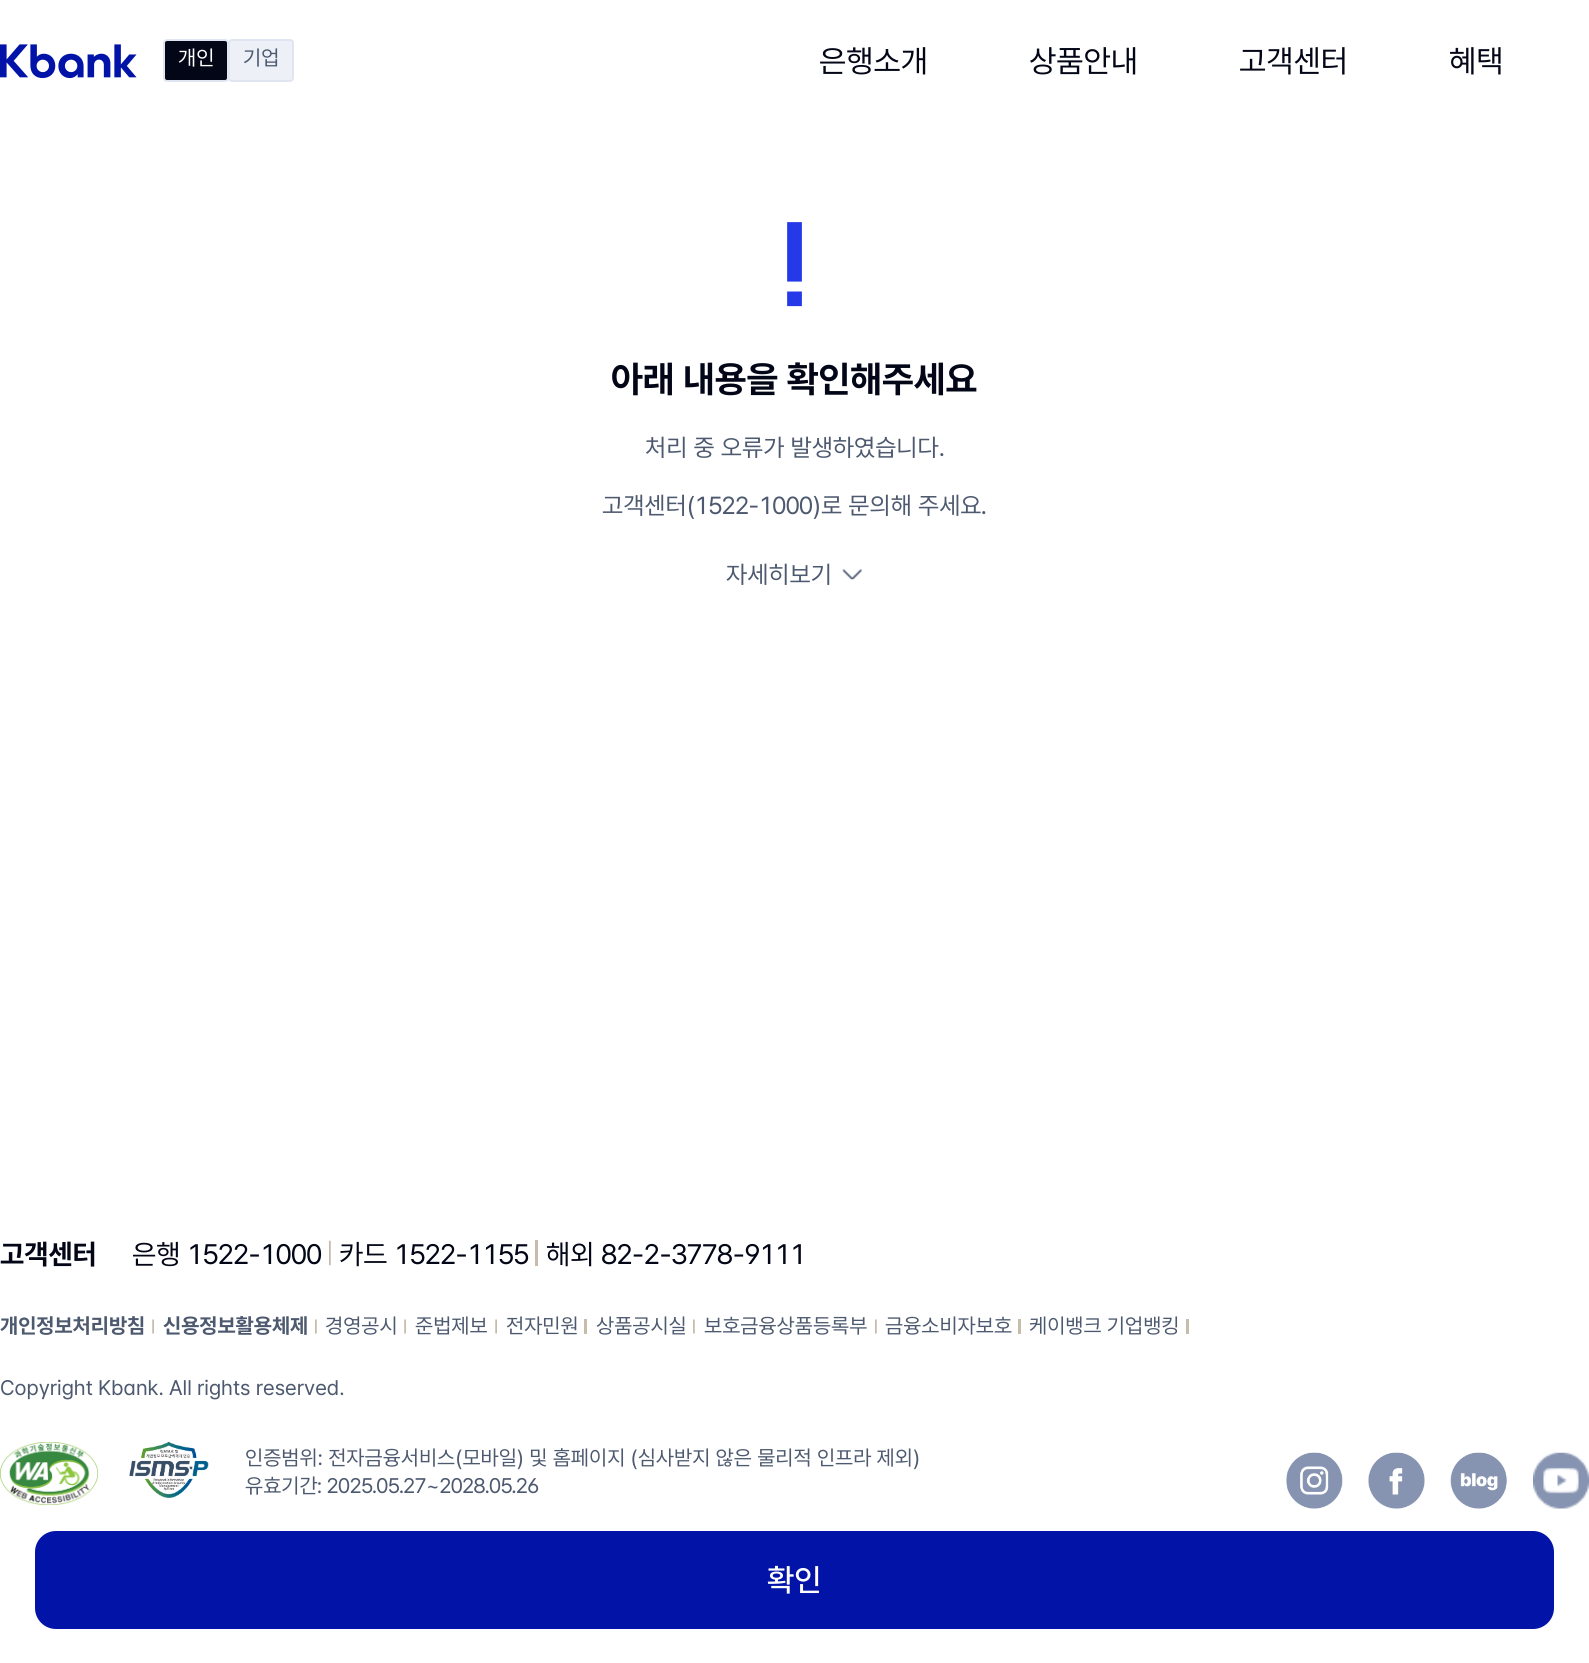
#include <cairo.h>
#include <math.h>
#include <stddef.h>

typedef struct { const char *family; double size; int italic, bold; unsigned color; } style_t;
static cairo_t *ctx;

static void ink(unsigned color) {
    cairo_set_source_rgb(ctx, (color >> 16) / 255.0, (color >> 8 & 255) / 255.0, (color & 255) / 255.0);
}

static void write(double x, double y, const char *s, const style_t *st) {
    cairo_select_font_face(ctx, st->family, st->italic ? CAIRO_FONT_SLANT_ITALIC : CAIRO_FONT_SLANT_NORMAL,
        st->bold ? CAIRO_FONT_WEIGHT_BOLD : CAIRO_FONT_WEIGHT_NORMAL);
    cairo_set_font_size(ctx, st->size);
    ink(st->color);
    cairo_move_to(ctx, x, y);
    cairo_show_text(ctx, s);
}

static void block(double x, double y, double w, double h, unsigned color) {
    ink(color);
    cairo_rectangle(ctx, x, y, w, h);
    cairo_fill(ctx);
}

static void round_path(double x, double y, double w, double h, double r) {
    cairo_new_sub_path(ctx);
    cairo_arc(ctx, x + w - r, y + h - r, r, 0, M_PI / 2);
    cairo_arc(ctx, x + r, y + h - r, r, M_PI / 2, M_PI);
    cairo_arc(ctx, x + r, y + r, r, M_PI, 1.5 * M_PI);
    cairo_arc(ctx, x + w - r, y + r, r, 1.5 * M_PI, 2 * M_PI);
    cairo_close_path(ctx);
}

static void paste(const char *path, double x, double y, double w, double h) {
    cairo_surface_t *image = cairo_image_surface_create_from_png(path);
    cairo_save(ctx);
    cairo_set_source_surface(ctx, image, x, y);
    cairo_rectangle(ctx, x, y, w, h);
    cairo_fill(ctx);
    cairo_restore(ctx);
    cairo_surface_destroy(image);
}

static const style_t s1 = {"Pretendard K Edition", 21, 0, 0, 0xffffff};
static const style_t s2 = {"Pretendard K Edition", 21, 0, 0, 0x4d596f};
static const style_t s3 = {"Pretendard K Edition", 31.5, 0, 0, 0x020616};
static const style_t s4 = {"Pretendard K Edition", 36.75, 0, 1, 0x020616};
static const style_t s5 = {"Pretendard K Edition", 24.5, 0, 0, 0x4d596f};
static const style_t s6 = {"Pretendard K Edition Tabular", 24.5, 0, 0, 0x4d596f};
static const style_t s7 = {"Pretendard K Edition Medium", 31.5, 0, 0, 0xffffff};
static const style_t s8 = {"Pretendard K Edition", 28, 0, 1, 0x020616};
static const style_t s9 = {"Pretendard K Edition Tabular", 28, 0, 0, 0x020616};
static const style_t s10 = {"Pretendard K Edition", 21, 0, 1, 0x4d596f};
static const style_t s11 = {"Pretendard K Edition Tabular", 21, 0, 0, 0x4d596f};

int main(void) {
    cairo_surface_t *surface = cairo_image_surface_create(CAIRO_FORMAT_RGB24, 1589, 1663);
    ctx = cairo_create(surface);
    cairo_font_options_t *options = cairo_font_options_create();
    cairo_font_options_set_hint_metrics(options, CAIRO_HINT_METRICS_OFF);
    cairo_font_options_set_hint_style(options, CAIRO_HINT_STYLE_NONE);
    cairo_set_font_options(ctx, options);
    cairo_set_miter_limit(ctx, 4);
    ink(0xffffff);
    cairo_paint(ctx);
    paste("pic1.png", 0, 44, 137, 35);
    ink(0xedf1f7);
    round_path(229, 40, 64, 41, 3);
    cairo_fill_preserve(ctx);
    ink(0xe0e6f1);
    cairo_stroke(ctx);
    ink(0x020616);
    round_path(164, 40, 64, 41, 3);
    cairo_fill_preserve(ctx);
    ink(0xe0e6f1);
    cairo_stroke(ctx);
    write(178, 65, "개인", &s1);
    write(243, 65, "기업", &s2);
    write(819, 72, "은행소개", &s3);
    write(1029, 72, "상품안내", &s3);
    write(1239, 72, "고객센터", &s3);
    write(1449, 72, "혜택", &s3);
    paste("pic2.png", 787, 222, 15, 85);
    write(611, 392, "아래 내용을 확인해주세요", &s4);
    write(645, 456, "처리 중 오류가 발생하였습니다.", &s5);
    write(602, 514, "고객센터(1522-1000)로 문의해 주세요.", &s6);
    write(726, 583, "자세히보기", &s5);
    paste("pic3.png", 842, 569, 20, 11);
    ink(0x0114a7);
    round_path(35, 1531, 1519, 98, 21);
    cairo_fill(ctx);
    write(767, 1591, "확인", &s7);
    write(0, 1264, "고객센터", &s8);
    paste("pic4.png", 329, 1240, 2, 26);
    write(132, 1264, "은행 1522-1000", &s9);
    block(535, 1240, 3, 26, 0xc7bbac);
    write(339, 1264, "카드 1522-1155", &s9);
    write(546, 1264, "해외 82-2-3778-9111", &s9);
    paste("pic5.png", 152, 1319, 2, 15);
    write(0, 1333, "개인정보처리방침", &s10);
    paste("pic6.png", 315, 1319, 2, 15);
    write(163, 1333, "신용정보활용체제", &s10);
    paste("pic5.png", 404, 1319, 2, 15);
    write(325, 1333, "경영공시", &s2);
    paste("pic5.png", 495, 1319, 2, 15);
    write(415, 1333, "준법제보", &s2);
    block(584, 1319, 3, 15, 0xc7bbac);
    write(506, 1333, "전자민원", &s2);
    paste("pic6.png", 693, 1319, 2, 15);
    write(596, 1333, "상품공시실", &s2);
    paste("pic6.png", 875, 1319, 2, 15);
    write(704, 1333, "보호금융상품등록부", &s2);
    block(1018, 1319, 3, 15, 0xc7bbac);
    write(885, 1333, "금융소비자보호", &s2);
    block(1186, 1319, 3, 15, 0xc7bbac);
    write(1029, 1333, "케이뱅크 기업뱅킹", &s2);
    write(0, 1395, "Copyright Kbank. All rights reserved.", &s2);
    paste("pic7.png", 0, 1442, 98, 63);
    paste("pic8.png", 129, 1441, 80, 57);
    write(245, 1465, "인증범위: 전자금융서비스(모바일) 및 홈페이지 (심사받지 않은 물리적 인프라 제외)", &s2);
    write(245, 1493, "유효기간: 2025.05.27~2028.05.26", &s11);
    paste("pic9.png", 1286, 1452, 57, 57);
    paste("pic10.png", 1368, 1452, 57, 57);
    paste("pic11.png", 1450, 1452, 57, 57);
    paste("pic12.png", 1533, 1452, 56, 57);
    cairo_surface_write_to_png(surface, "screenshot.png");
    cairo_font_options_destroy(options);
    cairo_destroy(ctx);
    cairo_surface_destroy(surface);
    return 0;
}
